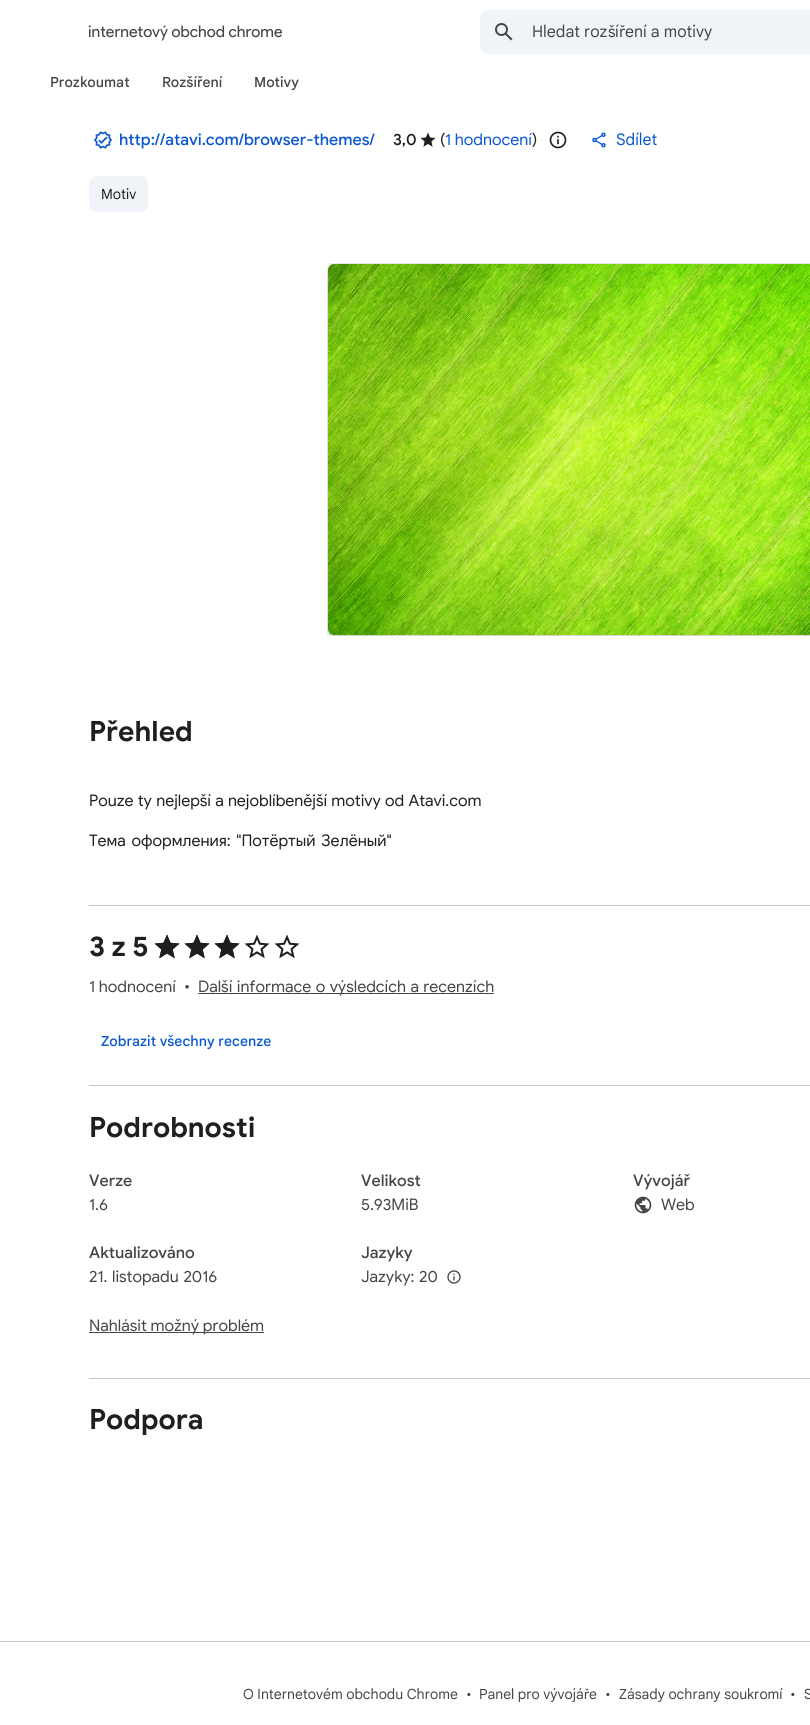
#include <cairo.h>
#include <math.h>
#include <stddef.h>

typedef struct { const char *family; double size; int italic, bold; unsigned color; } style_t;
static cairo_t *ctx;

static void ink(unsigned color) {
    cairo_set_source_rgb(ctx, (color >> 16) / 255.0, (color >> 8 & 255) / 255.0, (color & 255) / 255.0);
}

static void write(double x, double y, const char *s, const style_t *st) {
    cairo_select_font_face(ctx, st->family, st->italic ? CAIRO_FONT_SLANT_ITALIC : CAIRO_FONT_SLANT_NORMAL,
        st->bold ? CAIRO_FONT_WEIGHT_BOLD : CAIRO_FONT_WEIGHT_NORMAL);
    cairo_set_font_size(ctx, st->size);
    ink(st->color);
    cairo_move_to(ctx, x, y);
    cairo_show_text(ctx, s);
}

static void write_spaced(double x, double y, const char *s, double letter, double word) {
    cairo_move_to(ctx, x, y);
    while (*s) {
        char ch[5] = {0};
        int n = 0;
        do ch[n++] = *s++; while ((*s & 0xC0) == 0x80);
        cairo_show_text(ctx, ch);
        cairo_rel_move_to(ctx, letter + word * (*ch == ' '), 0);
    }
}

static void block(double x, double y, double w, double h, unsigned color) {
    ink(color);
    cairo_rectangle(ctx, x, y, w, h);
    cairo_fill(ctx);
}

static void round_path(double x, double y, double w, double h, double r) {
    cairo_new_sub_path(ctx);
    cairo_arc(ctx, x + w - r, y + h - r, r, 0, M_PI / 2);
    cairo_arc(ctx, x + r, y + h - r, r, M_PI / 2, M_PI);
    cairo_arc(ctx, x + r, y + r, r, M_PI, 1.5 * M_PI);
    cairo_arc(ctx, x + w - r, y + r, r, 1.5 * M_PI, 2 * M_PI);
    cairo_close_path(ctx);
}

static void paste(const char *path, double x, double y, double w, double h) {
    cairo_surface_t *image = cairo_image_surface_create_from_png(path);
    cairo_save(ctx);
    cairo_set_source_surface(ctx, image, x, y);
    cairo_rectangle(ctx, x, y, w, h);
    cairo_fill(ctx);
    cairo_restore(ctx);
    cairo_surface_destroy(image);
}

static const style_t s1 = {"Product Sans", 16, 0, 0, 0x444746};
static const style_t s2 = {"Google Sans", 16, 0, 0, 0x444746};
static const style_t s3 = {"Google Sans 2", 16, 0, 0, 0x444746};
static const style_t s4 = {"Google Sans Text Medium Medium", 14, 0, 0, 0x444746};
static const style_t s5 = {"Google Sans Medium", 16, 0, 0, 0x0b57d0};
static const style_t s6 = {"Google Sans Medium", 16, 0, 0, 0x1f1f1f};
static const style_t s7 = {"Google Sans 2", 16, 0, 0, 0x1f1f1f};
static const style_t s8 = {"Google Sans 2", 16, 0, 0, 0x0b57d0};
static const style_t s9 = {"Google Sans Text", 16, 0, 0, 0x0b57d0};
static const style_t s10 = {"Google Sans", 14, 0, 0, 0x1f1f1f};
static const style_t s11 = {"Google Sans", 28, 0, 1, 0x1f1f1f};
static const style_t s12 = {"Google Sans Text Medium Medium", 14, 0, 0, 0x0b57d0};
static const style_t s13 = {"Google Sans Medium", 16, 0, 0, 0x444746};
static const style_t s14 = {"Google Sans", 14, 0, 0, 0x444746};
static const style_t s15 = {"Google Sans 2", 14, 0, 0, 0x444746};

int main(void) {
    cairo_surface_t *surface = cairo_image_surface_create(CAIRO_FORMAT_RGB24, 810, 1725);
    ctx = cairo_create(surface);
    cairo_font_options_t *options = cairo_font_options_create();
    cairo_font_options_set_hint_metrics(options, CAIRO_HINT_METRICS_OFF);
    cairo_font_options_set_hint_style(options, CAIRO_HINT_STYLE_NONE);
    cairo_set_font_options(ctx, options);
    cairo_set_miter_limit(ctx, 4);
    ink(0xffffff);
    cairo_paint(ctx);
    paste("pic1.png", 61, 21, 6, 1);
    write(88, 37, "internetový obchod chrome", &s1);
    ink(0xf0f4f9);
    round_path(480, 10, 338, 44, 8);
    cairo_fill(ctx);
    paste("pic2.png", 495, 23, 18, 18);
    write(532, 37, "Hledat roz", &s2);
    write(608, 37, "š ř", &s3);
    write(615, 37, "í", &s2);
    write(625, 37, "ení a motivy", &s2);
    write(50, 87, "Prozkoumat", &s4);
    write(162, 87, "Rozšíření", &s4);
    write(254, 87, "Motivy", &s4);
    paste("pic3.png", 94, 131, 18, 18);
    write(119, 145, "http://atavi.com/browser-themes/", &s5);
    write(393, 145, "3,0", &s6);
    paste("pic4.png", 420, 132, 16, 15);
    write(440, 145, "(", &s7);
    write(445, 145, "1 hodnocení", &s8);
    write(532, 145, ")", &s7);
    paste("pic5.png", 549, 131, 18, 18);
    paste("pic6.png", 592, 132, 14, 16);
    write(616, 145, "Sdílet", &s9);
    ink(0xf0f4f9);
    round_path(89, 176, 59, 36, 8);
    cairo_fill(ctx);
    write(101, 199, "Motiv", &s10);
    paste("pic7.png", 327, 263, 483, 373);
    block(89, 905, 721, 1, 0xc4c7c5);
    write(89, 741, "Přehled", &s11);
    cairo_select_font_face(ctx, "Google Sans 2", CAIRO_FONT_SLANT_NORMAL, CAIRO_FONT_WEIGHT_NORMAL);
    cairo_set_font_size(ctx, 16);
    write_spaced(89, 806, "Pouze ty nejlepší a nejoblíbenější motivy od Atavi.com", 0, 0.5);
    write_spaced(89, 846, "Тема оформления: \"Потёртый Зелёный\"", 0, 2);
    block(89, 1085, 721, 1, 0xc4c7c5);
    write(89, 956, "3 z 5", &s11);
    paste("pic8.png", 154, 934, 26, 25);
    paste("pic8.png", 184, 934, 26, 25);
    paste("pic8.png", 214, 934, 26, 25);
    paste("pic8.png", 244, 934, 26, 25);
    paste("pic8.png", 274, 934, 26, 25);
    paste("pic9.png", 154, 934, 26, 25);
    paste("pic9.png", 184, 934, 26, 25);
    paste("pic9.png", 214, 934, 26, 25);
    write(89, 992, "1 hodnocení", &s3);
    write(184, 992, "•", &s3);
    block(198, 993, 296, 1, 0x444746);
    write_spaced(198, 992, "Další informace o výsledcích a recenzích", 0, 0.75);
    write(101, 1046, "Zobrazit všechny recenze", &s12);
    block(89, 1378, 721, 1, 0xc4c7c5);
    write(89, 1137, "Podrobnosti", &s11);
    write(89, 1186, "Verze", &s13);
    write(89, 1210, "1.6", &s3);
    write(361, 1186, "Velikost", &s13);
    write(361, 1210, "5.93MiB", &s3);
    write(633, 1186, "Vývojář", &s13);
    paste("pic10.png", 634, 1196, 18, 18);
    write(661, 1210, "Web", &s3);
    write(89, 1258, "Aktualizováno", &s13);
    cairo_select_font_face(ctx, "Google Sans 2", CAIRO_FONT_SLANT_NORMAL, CAIRO_FONT_WEIGHT_NORMAL);
    write_spaced(89, 1282, "21. listopadu 2016", 0, 1);
    write(361, 1258, "Jazyky", &s13);
    cairo_select_font_face(ctx, "Google Sans 2", CAIRO_FONT_SLANT_NORMAL, CAIRO_FONT_WEIGHT_NORMAL);
    write_spaced(361, 1282, "Jazyky: 20", 0, 1);
    paste("pic11.png", 447, 1270, 14, 14);
    block(89, 1332, 175, 1, 0x444746);
    write(89, 1331, "Nahlásit možný problém", &s3);
    write(89, 1429, "Podpora", &s11);
    block(0, 1641, 810, 1, 0xc4c7c5);
    write(243, 1699, "O Internetovém obchodu Chrome", &s14);
    write(466, 1699, "•", &s14);
    write(479, 1699, "Panel pro vývojá", &s14);
    write(584, 1699, "ř", &s15);
    write(589, 1699, "e", &s14);
    write(605, 1699, "•", &s14);
    write(619, 1699, "Zásady ochrany soukromí", &s14);
    write(790, 1699, "•", &s14);
    write(804, 1699, "S", &s14);
    cairo_surface_write_to_png(surface, "screenshot.png");
    cairo_font_options_destroy(options);
    cairo_destroy(ctx);
    cairo_surface_destroy(surface);
    return 0;
}
